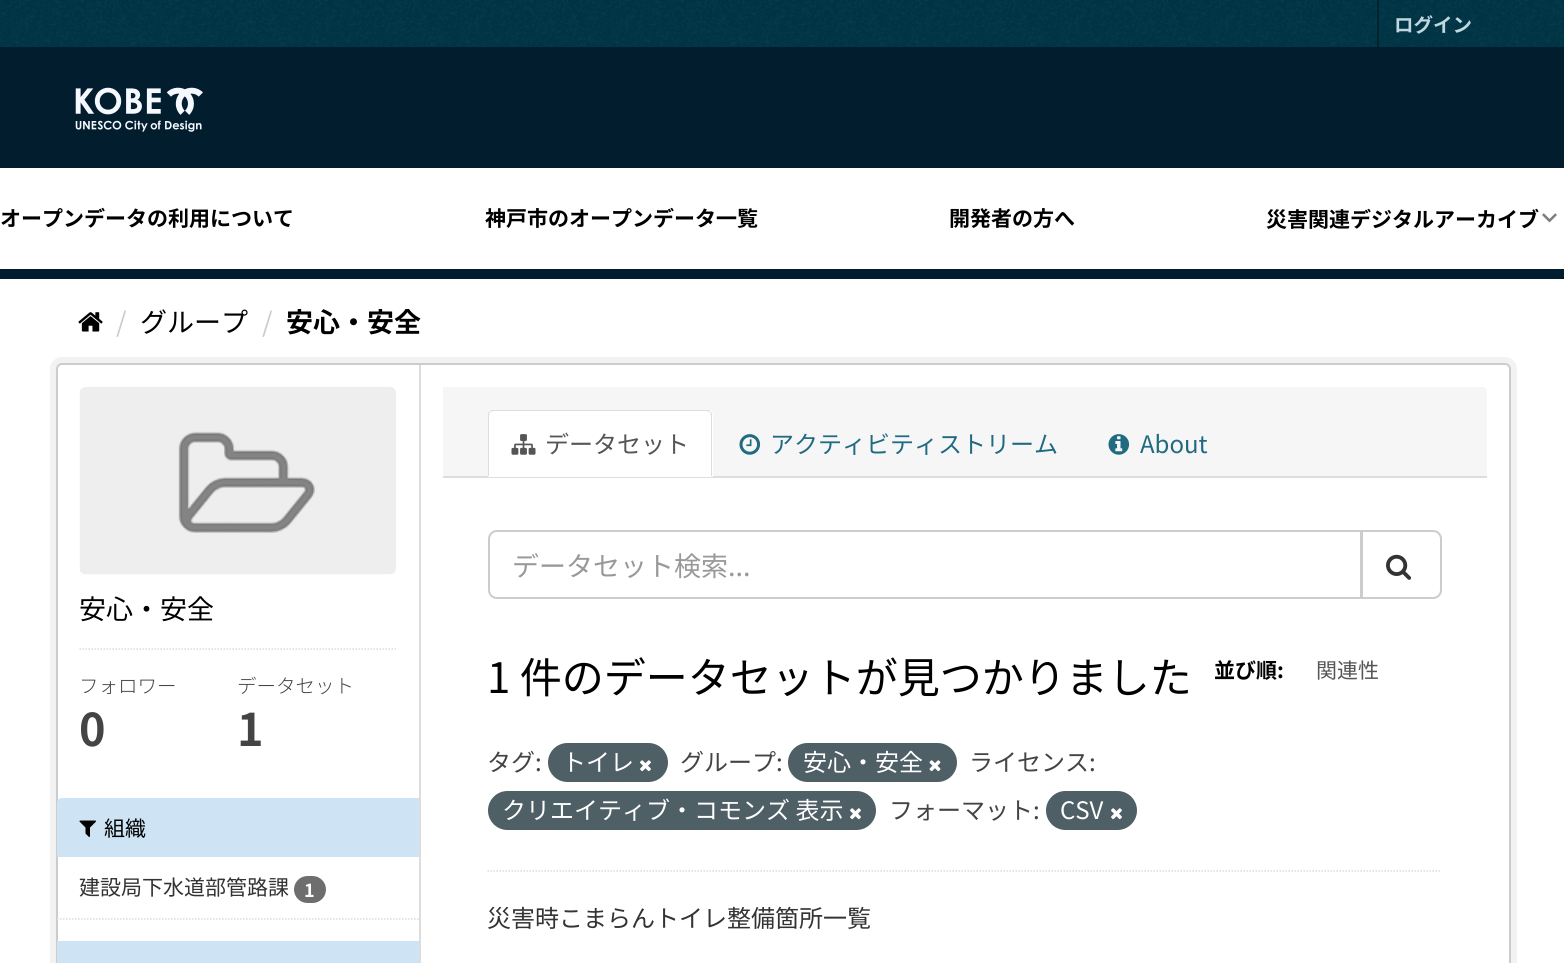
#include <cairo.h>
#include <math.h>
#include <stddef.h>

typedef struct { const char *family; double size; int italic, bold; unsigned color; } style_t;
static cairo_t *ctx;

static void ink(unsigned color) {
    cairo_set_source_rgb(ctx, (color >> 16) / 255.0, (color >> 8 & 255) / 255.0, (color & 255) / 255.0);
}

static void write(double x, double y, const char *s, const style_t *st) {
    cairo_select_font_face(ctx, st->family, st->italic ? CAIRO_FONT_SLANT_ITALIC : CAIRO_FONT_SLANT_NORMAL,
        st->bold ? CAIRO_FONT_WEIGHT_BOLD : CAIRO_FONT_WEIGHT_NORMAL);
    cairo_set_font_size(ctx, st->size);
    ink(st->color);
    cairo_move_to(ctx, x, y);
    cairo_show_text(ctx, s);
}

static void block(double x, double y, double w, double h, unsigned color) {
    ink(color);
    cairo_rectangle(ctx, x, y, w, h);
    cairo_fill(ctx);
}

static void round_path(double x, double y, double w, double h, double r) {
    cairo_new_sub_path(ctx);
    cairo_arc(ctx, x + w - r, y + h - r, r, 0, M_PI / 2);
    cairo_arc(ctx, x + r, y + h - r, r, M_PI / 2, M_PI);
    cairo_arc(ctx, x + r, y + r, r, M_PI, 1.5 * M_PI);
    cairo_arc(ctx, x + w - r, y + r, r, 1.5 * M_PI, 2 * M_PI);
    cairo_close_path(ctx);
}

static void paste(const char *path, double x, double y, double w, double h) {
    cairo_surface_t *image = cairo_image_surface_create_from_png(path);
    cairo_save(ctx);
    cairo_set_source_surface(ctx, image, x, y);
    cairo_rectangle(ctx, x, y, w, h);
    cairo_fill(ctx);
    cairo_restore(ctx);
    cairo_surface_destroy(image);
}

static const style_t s1 = {"Noto Sans JP", 19.5, 0, 1, 0xbfd7de};
static const style_t s2 = {"Noto Sans JP", 21, 0, 1, 0x000000};
static const style_t s3 = {"Noto Sans JP", 27, 0, 0, 0xcccccc};
static const style_t s4 = {"Noto Sans JP", 27, 0, 0, 0x000000};
static const style_t s5 = {"Noto Sans JP", 27, 0, 1, 0x000000};
static const style_t s6 = {"Noto Sans JP Light", 19.5, 0, 0, 0x444444};
static const style_t s7 = {"Noto Sans JP", 45, 0, 1, 0x444444};
static const style_t s8 = {"Noto Sans JP", 21, 0, 0, 0x000000};
static const style_t s9 = {"Noto Sans JP", 21, 0, 0, 0x333333};
static const style_t s10 = {"Noto Sans JP", 18, 0, 1, 0xffffff};
static const style_t s11 = {"Noto Sans JP", 24, 0, 0, 0x555555};
static const style_t s12 = {"Noto Sans JP", 24, 0, 0, 0x206b82};
static const style_t s13 = {"Noto Sans JP", 27, 0, 0, 0x999999};
static const style_t s14 = {"Noto Sans JP", 42, 0, 0, 0x000000};
static const style_t s15 = {"Noto Sans JP", 21, 0, 0, 0x555555};
static const style_t s16 = {"Noto Sans JP", 24, 0, 0, 0x444444};
static const style_t s17 = {"Noto Sans JP", 24, 0, 0, 0xffffff};
static const style_t s18 = {"Noto Sans JP", 24, 0, 0, 0x333333};

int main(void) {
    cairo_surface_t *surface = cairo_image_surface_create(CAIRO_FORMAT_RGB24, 1564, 963);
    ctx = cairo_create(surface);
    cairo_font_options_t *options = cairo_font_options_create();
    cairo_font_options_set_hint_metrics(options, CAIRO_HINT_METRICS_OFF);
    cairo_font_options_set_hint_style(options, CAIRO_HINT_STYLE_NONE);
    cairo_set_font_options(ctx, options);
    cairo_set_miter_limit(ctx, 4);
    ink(0xffffff);
    cairo_paint(ctx);
    block(0, 0, 1564, 47, 0x003647);
    paste("pic1.png", 0, 0, 1564, 46);
    block(1377, 0, 2, 47, 0x00232e);
    write(1394, 32, "ログイン", &s1);
    block(0, 269, 1564, 10, 0x021d2e);
    block(0, 47, 1564, 121, 0x021d2e);
    paste("pic2.png", 75, 87, 128, 45);
    write(0, 226, "オープンデータの利用について", &s2);
    write(485, 226, "神戸市のオープンデータ一覧", &s2);
    write(949, 226, "開発者の方へ", &s2);
    paste("pic3.png", 1542, 213, 15, 10);
    write(1266, 227, "災害関連デジタルアーカイブ", &s2);
    paste("pic4.png", 78, 312, 25, 20);
    write(116, 332, "/", &s3);
    write(140, 332, "グループ", &s4);
    write(262, 332, "/", &s3);
    write(286, 332, "安心・安全", &s5);
    round_path(53, 360, 1461, 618, 9);
    ink(0xf2f2f2);
    cairo_set_line_width(ctx, 6);
    cairo_stroke(ctx);
    ink(0xffffff);
    round_path(57, 364, 1453, 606, 5);
    cairo_fill_preserve(ctx);
    ink(0xcccccc);
    cairo_set_line_width(ctx, 2);
    cairo_stroke(ctx);
    paste("pic5.png", 79, 387, 317, 188);
    write(79, 619, "安心・安全", &s4);
    cairo_new_path(ctx);
    cairo_move_to(ctx, 79.5, 649);
    cairo_line_to(ctx, 396, 649);
    ink(0xdddddd);
    cairo_set_line_width(ctx, 1.5);
    cairo_set_dash(ctx, (double[]){1.5, 1.5}, 2, 0);
    cairo_stroke(ctx);
    write(79, 693, "フォロワー", &s6);
    write(79, 746, "0", &s7);
    write(237, 693, "データセット", &s6);
    write(237, 746, "1", &s7);
    ink(0xcee3f3);
    cairo_new_path(ctx);
    cairo_move_to(ctx, 62, 798);
    cairo_line_to(ctx, 419, 798);
    cairo_line_to(ctx, 419, 857);
    cairo_line_to(ctx, 57, 857);
    cairo_line_to(ctx, 57, 803);
    cairo_curve_to(ctx, 57, 800, 59, 798, 62, 798);
    cairo_close_path(ctx);
    cairo_fill(ctx);
    paste("pic6.png", 79, 820, 17, 17);
    write(104, 836, "組織", &s8);
    write(79, 895, "建設局下水道部管路課", &s9);
    ink(0x6e6e6e);
    round_path(294, 876, 32, 27, 13.5);
    cairo_fill(ctx);
    write(304, 897, "1", &s10);
    cairo_new_path(ctx);
    cairo_move_to(ctx, 57, 919);
    cairo_line_to(ctx, 418.5, 919);
    ink(0xdddddd);
    cairo_stroke(ctx);
    block(57, 941, 362, 22, 0xcee3f3);
    block(419, 365, 2, 598, 0xdddddd);
    ink(0xf6f6f6);
    cairo_new_path(ctx);
    cairo_move_to(ctx, 443, 387);
    cairo_line_to(ctx, 1482, 387);
    cairo_curve_to(ctx, 1485, 387, 1487, 389, 1487, 392);
    cairo_line_to(ctx, 1487, 477);
    cairo_line_to(ctx, 443, 477);
    cairo_close_path(ctx);
    cairo_fill(ctx);
    block(443, 476, 1044, 2, 0xdddddd);
    ink(0xffffff);
    cairo_new_path(ctx);
    cairo_move_to(ctx, 494, 410);
    cairo_line_to(ctx, 707, 410);
    cairo_curve_to(ctx, 710.5, 410, 713, 412.5, 713, 416);
    cairo_line_to(ctx, 713, 477);
    cairo_line_to(ctx, 488, 477);
    cairo_line_to(ctx, 488, 416);
    cairo_curve_to(ctx, 488, 412.5, 490.5, 410, 494, 410);
    cairo_close_path(ctx);
    cairo_fill(ctx);
    ink(0xdddddd);
    cairo_new_path(ctx);
    cairo_move_to(ctx, 494, 410);
    cairo_curve_to(ctx, 492, 410, 490, 410, 490, 412);
    cairo_curve_to(ctx, 491, 412, 492, 411, 494, 411);
    cairo_line_to(ctx, 706, 411);
    cairo_curve_to(ctx, 708, 411, 709, 412, 710, 412);
    cairo_curve_to(ctx, 710, 410, 708, 410, 706, 410);
    cairo_close_path(ctx);
    cairo_fill(ctx);
    cairo_new_path(ctx);
    cairo_move_to(ctx, 712, 476);
    cairo_line_to(ctx, 712, 416);
    cairo_curve_to(ctx, 712, 414, 712, 412, 710, 412);
    cairo_curve_to(ctx, 710, 413, 711, 414, 711, 416);
    cairo_line_to(ctx, 711, 476);
    cairo_close_path(ctx);
    cairo_fill(ctx);
    cairo_new_path(ctx);
    cairo_move_to(ctx, 490, 412);
    cairo_curve_to(ctx, 488, 412, 488, 414, 488, 416);
    cairo_line_to(ctx, 488, 476);
    cairo_line_to(ctx, 489, 476);
    cairo_line_to(ctx, 489, 416);
    cairo_curve_to(ctx, 489, 414, 490, 413, 490, 412);
    cairo_close_path(ctx);
    cairo_fill(ctx);
    paste("pic7.png", 511, 434, 25, 21);
    write(545, 453, "データセット", &s11);
    paste("pic8.png", 739, 434, 22, 21);
    write(770, 453, "アクティビティストリーム", &s12);
    paste("pic9.png", 1108, 434, 22, 21);
    write(1140, 453, "About", &s12);
    cairo_new_path(ctx);
    cairo_move_to(ctx, 487.5, 871);
    cairo_line_to(ctx, 1441.5, 871);
    ink(0xdddddd);
    cairo_stroke(ctx);
    cairo_new_path(ctx);
    cairo_move_to(ctx, 497, 531);
    cairo_line_to(ctx, 1361, 531);
    cairo_line_to(ctx, 1361, 598);
    cairo_line_to(ctx, 497, 598);
    cairo_curve_to(ctx, 492.5, 598, 489, 594.5, 489, 590);
    cairo_line_to(ctx, 489, 539);
    cairo_curve_to(ctx, 489, 534.5, 492.5, 531, 497, 531);
    cairo_close_path(ctx);
    ink(0xcccccc);
    cairo_set_line_width(ctx, 2);
    cairo_set_dash(ctx, NULL, 0, 0);
    cairo_stroke(ctx);
    write(512, 576, "データセット検索...", &s13);
    ink(0xffffff);
    cairo_new_path(ctx);
    cairo_move_to(ctx, 1362, 531);
    cairo_line_to(ctx, 1433, 531);
    cairo_curve_to(ctx, 1437.5, 531, 1441, 534.5, 1441, 539);
    cairo_line_to(ctx, 1441, 590);
    cairo_curve_to(ctx, 1441, 594.5, 1437.5, 598, 1433, 598);
    cairo_line_to(ctx, 1362, 598);
    cairo_close_path(ctx);
    cairo_fill_preserve(ctx);
    ink(0xcccccc);
    cairo_stroke(ctx);
    paste("pic10.png", 1386, 554, 25, 26);
    write(487, 693, "1 件のデータセットが見つかりました", &s14);
    write(1214, 678, "並び順:", &s2);
    write(1316, 678, "関連性", &s15);
    write(487, 771, "タグ:", &s16);
    ink(0x4e5f65);
    round_path(548, 743, 120, 39, 19.5);
    cairo_fill(ctx);
    write(562, 771, "トイレ", &s17);
    paste("pic11.png", 640, 760, 11, 12);
    write(680, 771, "グループ:", &s16);
    ink(0x4e5f65);
    round_path(788, 743, 169, 39, 19.5);
    cairo_fill(ctx);
    write(803, 771, "安心・安全", &s17);
    paste("pic12.png", 929, 760, 12, 12);
    write(969, 771, "ライセンス:", &s16);
    ink(0x4e5f65);
    round_path(488, 791, 388, 39, 19.5);
    cairo_fill(ctx);
    write(502, 819, "クリエイティブ・コモンズ 表示", &s17);
    paste("pic11.png", 850, 808, 11, 12);
    write(889, 819, "フォーマット:", &s16);
    ink(0x4e5f65);
    round_path(1046, 791, 91, 39, 19.5);
    cairo_fill(ctx);
    write(1060, 819, "CSV", &s17);
    paste("pic11.png", 1111, 808, 11, 12);
    write(487, 927, "災害時こまらんトイレ整備箇所一覧", &s18);
    cairo_surface_write_to_png(surface, "screenshot.png");
    cairo_font_options_destroy(options);
    cairo_destroy(ctx);
    cairo_surface_destroy(surface);
    return 0;
}
